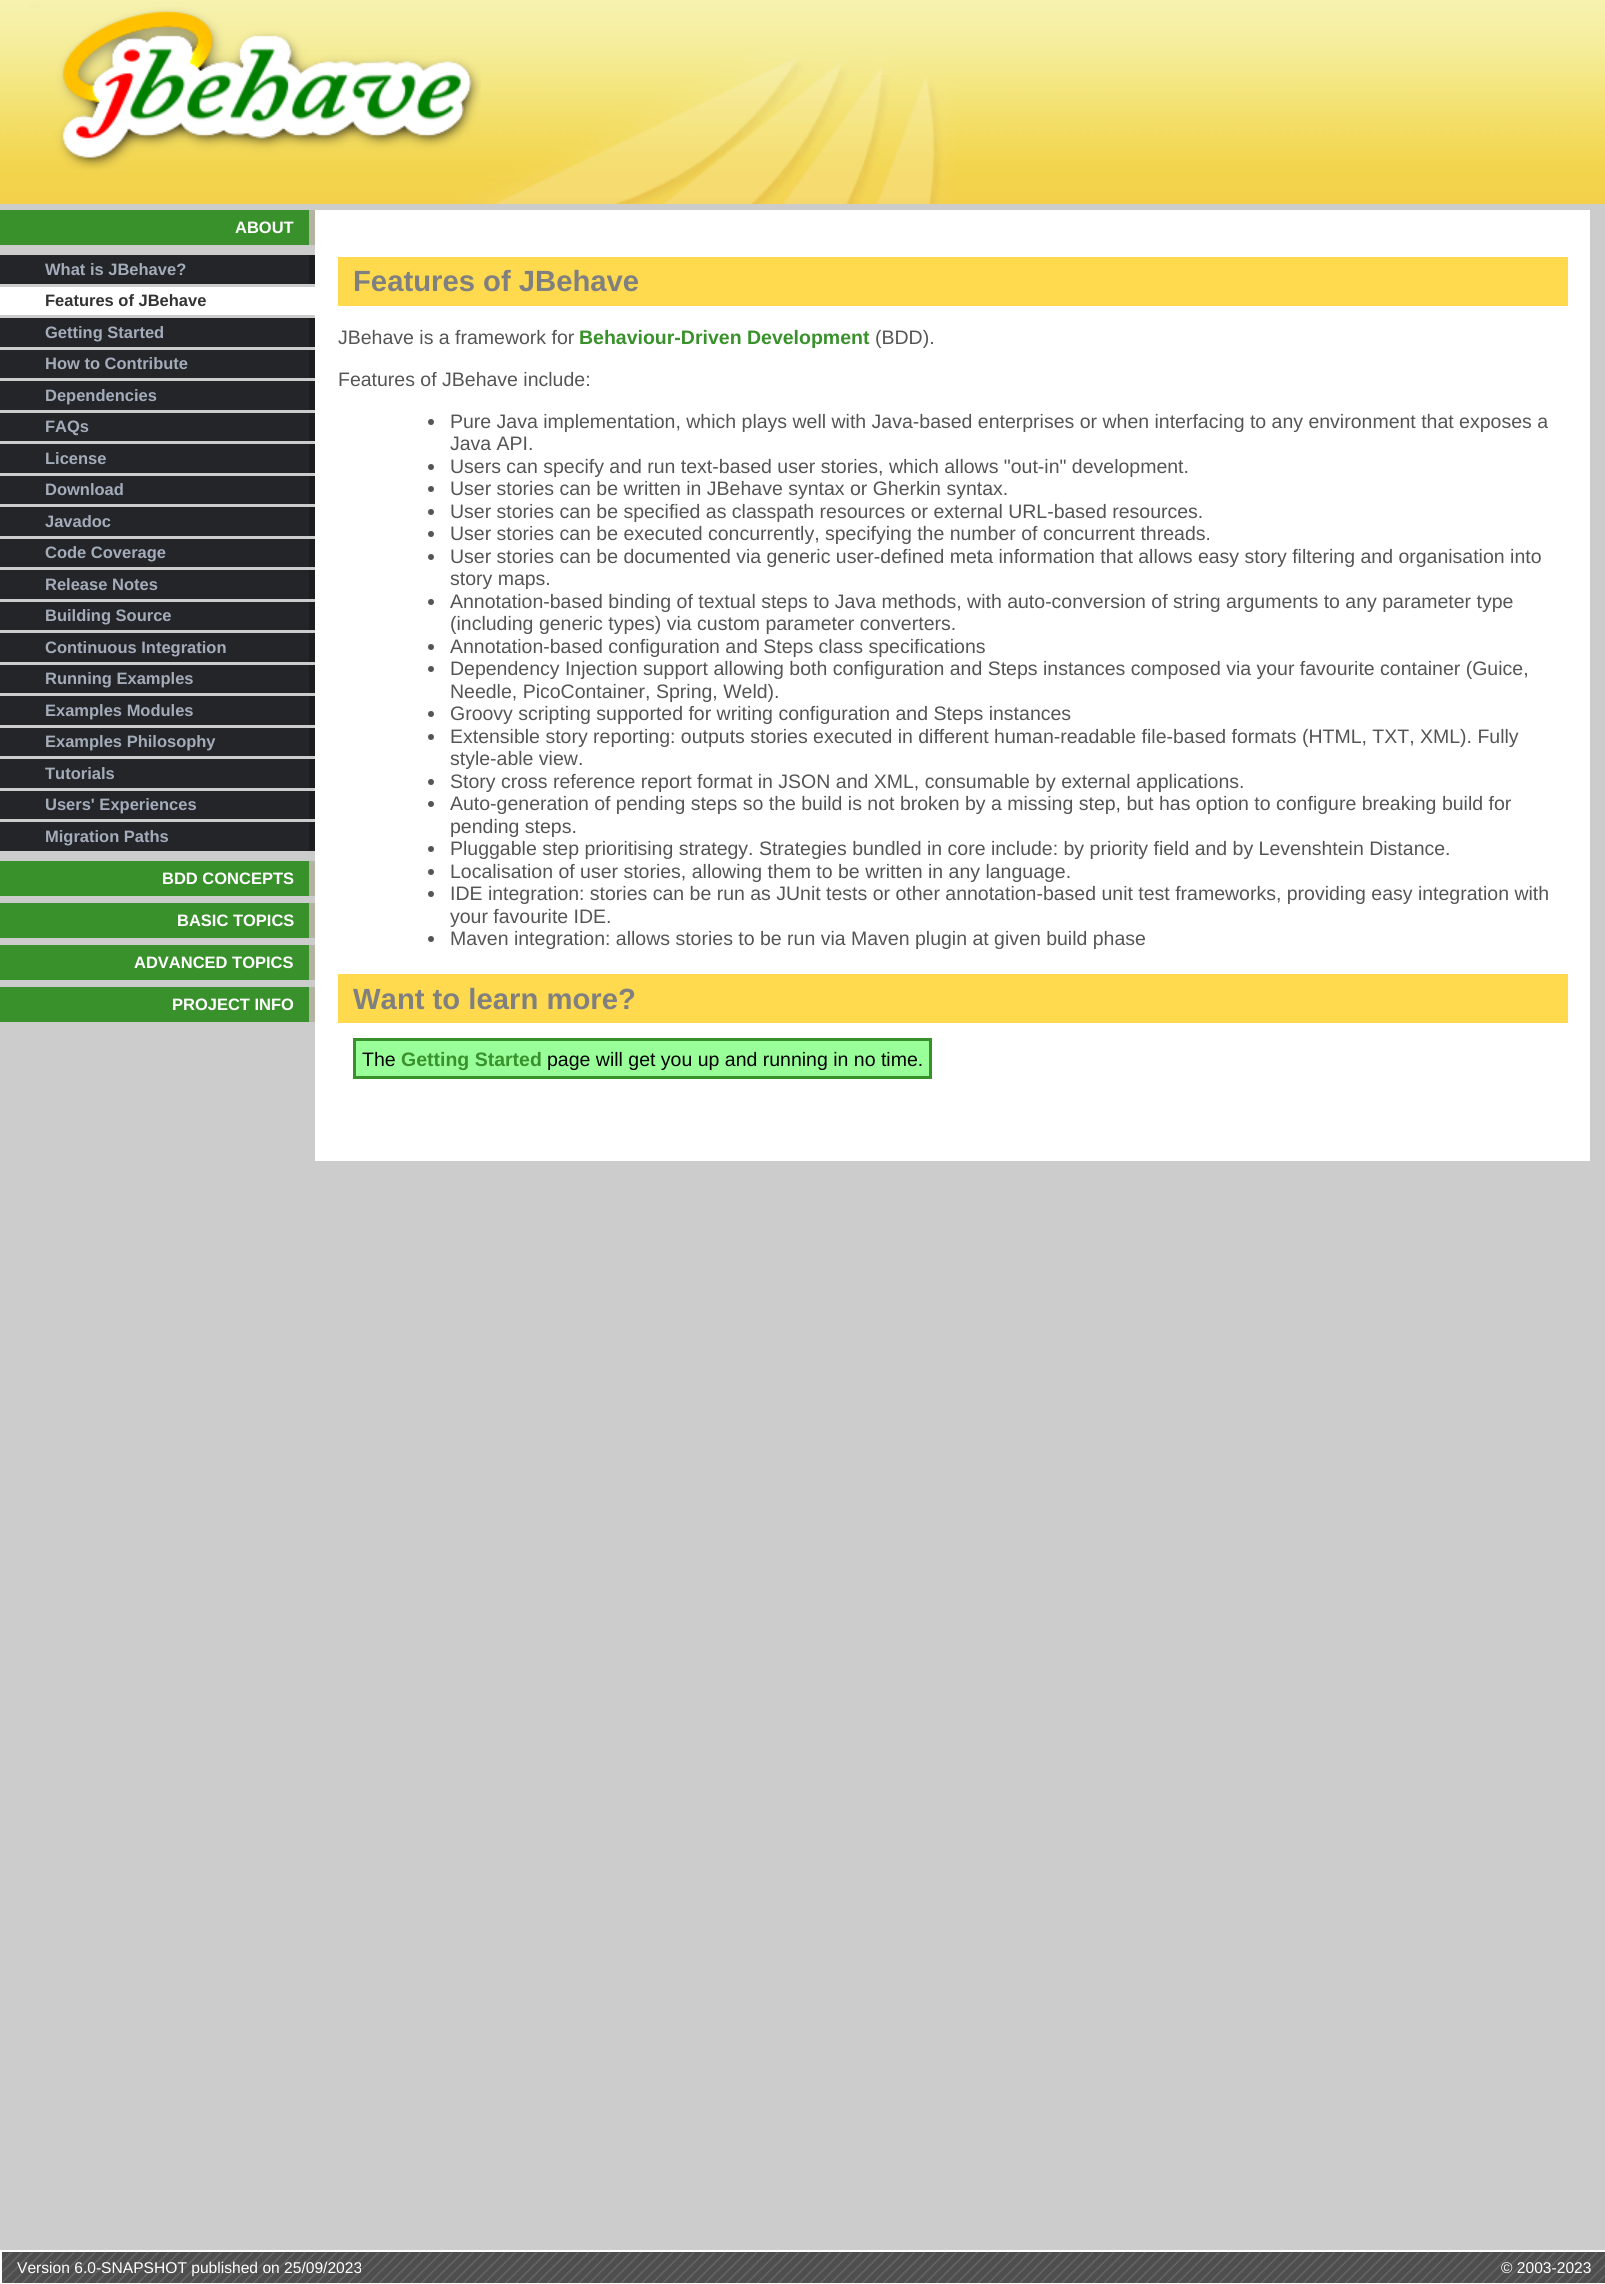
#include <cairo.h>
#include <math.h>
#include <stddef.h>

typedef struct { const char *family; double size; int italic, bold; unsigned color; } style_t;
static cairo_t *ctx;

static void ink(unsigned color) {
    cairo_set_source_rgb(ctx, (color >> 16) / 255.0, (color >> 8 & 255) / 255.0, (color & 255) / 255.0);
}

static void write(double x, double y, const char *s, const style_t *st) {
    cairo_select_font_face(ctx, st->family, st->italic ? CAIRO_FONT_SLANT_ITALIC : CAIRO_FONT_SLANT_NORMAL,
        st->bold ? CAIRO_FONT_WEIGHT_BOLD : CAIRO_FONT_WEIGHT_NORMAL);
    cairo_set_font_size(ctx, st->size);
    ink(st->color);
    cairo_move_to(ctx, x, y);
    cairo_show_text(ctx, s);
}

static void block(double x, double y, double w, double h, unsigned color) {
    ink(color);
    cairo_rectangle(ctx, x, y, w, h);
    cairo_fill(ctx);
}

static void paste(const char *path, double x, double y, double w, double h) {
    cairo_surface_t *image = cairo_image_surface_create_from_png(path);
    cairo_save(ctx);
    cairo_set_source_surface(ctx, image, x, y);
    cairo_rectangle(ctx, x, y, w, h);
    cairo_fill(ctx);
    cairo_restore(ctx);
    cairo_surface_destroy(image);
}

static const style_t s1 = {"Liberation Sans", 16.5, 0, 1, 0xffffff};
static const style_t s2 = {"Liberation Sans", 16.5, 0, 1, 0xa4acba};
static const style_t s3 = {"Liberation Sans", 16.5, 0, 1, 0x333333};
static const style_t s4 = {"Liberation Sans", 29.25, 0, 1, 0x808080};
static const style_t s5 = {"Liberation Sans", 19.5, 0, 0, 0x555555};
static const style_t s6 = {"Liberation Sans", 19.5, 0, 1, 0x39912b};
static const style_t s7 = {"Liberation Sans", 19.5, 0, 0, 0x000000};
static const style_t s8 = {"Liberation Sans", 15.6, 0, 0, 0xffffff};

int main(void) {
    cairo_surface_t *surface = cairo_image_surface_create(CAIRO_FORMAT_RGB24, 1605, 2284);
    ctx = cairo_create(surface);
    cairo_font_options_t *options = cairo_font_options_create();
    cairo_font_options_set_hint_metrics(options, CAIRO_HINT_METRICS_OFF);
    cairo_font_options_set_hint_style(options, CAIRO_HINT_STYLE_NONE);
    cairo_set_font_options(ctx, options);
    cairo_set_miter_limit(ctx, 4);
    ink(0xcccccc);
    cairo_paint(ctx);
    paste("pic1.png", 0, 0, 1605, 204);
    paste("pic2.png", 30, 6, 451, 164);
    block(0, 210, 309, 35, 0x39912b);
    block(309, 210, 6, 35, 0xb3b3a1);
    write(235, 233, "ABOUT", &s1);
    block(0, 255, 309, 29, 0x232529);
    block(309, 255, 6, 29, 0x1c1d1f);
    write(45, 275, "What is JBehave?", &s2);
    block(0, 287, 315, 28, 0xffffff);
    write(45, 306, "Features of JBehave", &s3);
    block(0, 318, 309, 29, 0x232529);
    block(309, 318, 6, 29, 0x1c1d1f);
    write(45, 338, "Getting Started", &s2);
    block(0, 350, 309, 28, 0x232529);
    block(309, 350, 6, 28, 0x1c1d1f);
    write(45, 369, "How to Contribute", &s2);
    block(0, 381, 309, 29, 0x232529);
    block(309, 381, 6, 29, 0x1c1d1f);
    write(45, 401, "Dependencies", &s2);
    block(0, 413, 309, 28, 0x232529);
    block(309, 413, 6, 28, 0x1c1d1f);
    write(45, 432, "FAQs", &s2);
    block(0, 444, 309, 29, 0x232529);
    block(309, 444, 6, 29, 0x1c1d1f);
    write(45, 464, "License", &s2);
    block(0, 476, 309, 28, 0x232529);
    block(309, 476, 6, 28, 0x1c1d1f);
    write(45, 495, "Download", &s2);
    block(0, 507, 309, 29, 0x232529);
    block(309, 507, 6, 29, 0x1c1d1f);
    write(45, 527, "Javadoc", &s2);
    block(0, 539, 309, 28, 0x232529);
    block(309, 539, 6, 28, 0x1c1d1f);
    write(45, 558, "Code Coverage", &s2);
    block(0, 570, 309, 29, 0x232529);
    block(309, 570, 6, 29, 0x1c1d1f);
    write(45, 590, "Release Notes", &s2);
    block(0, 602, 309, 28, 0x232529);
    block(309, 602, 6, 28, 0x1c1d1f);
    write(45, 621, "Building Source", &s2);
    block(0, 633, 309, 29, 0x232529);
    block(309, 633, 6, 29, 0x1c1d1f);
    write(45, 653, "Continuous Integration", &s2);
    block(0, 665, 309, 28, 0x232529);
    block(309, 665, 6, 28, 0x1c1d1f);
    write(45, 684, "Running Examples", &s2);
    block(0, 696, 309, 29, 0x232529);
    block(309, 696, 6, 29, 0x1c1d1f);
    write(45, 716, "Examples Modules", &s2);
    block(0, 728, 309, 28, 0x232529);
    block(309, 728, 6, 28, 0x1c1d1f);
    write(45, 747, "Examples Philosophy", &s2);
    block(0, 759, 309, 29, 0x232529);
    block(309, 759, 6, 29, 0x1c1d1f);
    write(45, 779, "Tutorials", &s2);
    block(0, 791, 309, 28, 0x232529);
    block(309, 791, 6, 28, 0x1c1d1f);
    write(45, 810, "Users' Experiences", &s2);
    block(0, 822, 309, 29, 0x232529);
    block(309, 822, 6, 29, 0x1c1d1f);
    write(45, 842, "Migration Paths", &s2);
    block(0, 861, 309, 35, 0x39912b);
    block(309, 861, 6, 35, 0xb3b3a1);
    write(162, 884, "BDD CONCEPTS", &s1);
    block(0, 903, 309, 35, 0x39912b);
    block(309, 903, 6, 35, 0xb3b3a1);
    write(177, 926, "BASIC TOPICS", &s1);
    block(0, 945, 309, 35, 0x39912b);
    block(309, 945, 6, 35, 0xb3b3a1);
    write(134, 968, "ADVANCED TOPICS", &s1);
    block(0, 987, 309, 35, 0x39912b);
    block(309, 987, 6, 35, 0xb3b3a1);
    write(172, 1010, "PROJECT INFO", &s1);
    block(315, 210, 1275, 951, 0xffffff);
    block(338, 257, 1230, 49, 0xffda4e);
    write(353, 291, "Features of JBehave", &s4);
    write(338, 344, "JBehave is a framework for", &s5);
    write(579, 344, "Behaviour-Driven Development", &s6);
    write(875, 344, "(BDD).", &s5);
    write(338, 386, "Features of JBehave include:", &s5);
    cairo_new_path(ctx);
    cairo_arc(ctx, 431, 422, 3, 0, 2 * M_PI);
    cairo_fill(ctx);
    write(450, 428, "Pure Java implementation, which plays well with Java-based enterprises or when interfacing to any environment that exposes a", &s5);
    write(450, 450, "Java API.", &s5);
    cairo_new_path(ctx);
    cairo_arc(ctx, 431, 467, 3, 0, 2 * M_PI);
    cairo_fill(ctx);
    write(450, 473, "Users can specify and run text-based user stories, which allows \"out-in\" development.", &s5);
    cairo_new_path(ctx);
    cairo_arc(ctx, 431, 489, 3, 0, 2 * M_PI);
    cairo_fill(ctx);
    write(450, 495, "User stories can be written in JBehave syntax or Gherkin syntax.", &s5);
    cairo_new_path(ctx);
    cairo_arc(ctx, 431, 512, 3, 0, 2 * M_PI);
    cairo_fill(ctx);
    write(450, 518, "User stories can be specified as classpath resources or external URL-based resources.", &s5);
    cairo_new_path(ctx);
    cairo_arc(ctx, 431, 534, 3, 0, 2 * M_PI);
    cairo_fill(ctx);
    write(450, 540, "User stories can be executed concurrently, specifying the number of concurrent threads.", &s5);
    cairo_new_path(ctx);
    cairo_arc(ctx, 431, 557, 3, 0, 2 * M_PI);
    cairo_fill(ctx);
    write(450, 563, "User stories can be documented via generic user-defined meta information that allows easy story filtering and organisation into", &s5);
    write(450, 585, "story maps.", &s5);
    cairo_new_path(ctx);
    cairo_arc(ctx, 431, 602, 3, 0, 2 * M_PI);
    cairo_fill(ctx);
    write(450, 608, "Annotation-based binding of textual steps to Java methods, with auto-conversion of string arguments to any parameter type", &s5);
    write(450, 630, "(including generic types) via custom parameter converters.", &s5);
    cairo_new_path(ctx);
    cairo_arc(ctx, 431, 647, 3, 0, 2 * M_PI);
    cairo_fill(ctx);
    write(450, 653, "Annotation-based configuration and Steps class specifications", &s5);
    cairo_new_path(ctx);
    cairo_arc(ctx, 431, 669, 3, 0, 2 * M_PI);
    cairo_fill(ctx);
    write(450, 675, "Dependency Injection support allowing both configuration and Steps instances composed via your favourite container (Guice,", &s5);
    write(450, 698, "Needle, PicoContainer, Spring, Weld).", &s5);
    cairo_new_path(ctx);
    cairo_arc(ctx, 431, 714, 3, 0, 2 * M_PI);
    cairo_fill(ctx);
    write(450, 720, "Groovy scripting supported for writing configuration and Steps instances", &s5);
    cairo_new_path(ctx);
    cairo_arc(ctx, 431, 737, 3, 0, 2 * M_PI);
    cairo_fill(ctx);
    write(450, 743, "Extensible story reporting: outputs stories executed in different human-readable file-based formats (HTML, TXT, XML). Fully", &s5);
    write(450, 765, "style-able view.", &s5);
    cairo_new_path(ctx);
    cairo_arc(ctx, 431, 782, 3, 0, 2 * M_PI);
    cairo_fill(ctx);
    write(450, 788, "Story cross reference report format in JSON and XML, consumable by external applications.", &s5);
    cairo_new_path(ctx);
    cairo_arc(ctx, 431, 804, 3, 0, 2 * M_PI);
    cairo_fill(ctx);
    write(450, 810, "Auto-generation of pending steps so the build is not broken by a missing step, but has option to configure breaking build for", &s5);
    write(450, 833, "pending steps.", &s5);
    cairo_new_path(ctx);
    cairo_arc(ctx, 431, 849, 3, 0, 2 * M_PI);
    cairo_fill(ctx);
    write(450, 855, "Pluggable step prioritising strategy. Strategies bundled in core include: by priority field and by Levenshtein Distance.", &s5);
    cairo_new_path(ctx);
    cairo_arc(ctx, 431, 872, 3, 0, 2 * M_PI);
    cairo_fill(ctx);
    write(450, 878, "Localisation of user stories, allowing them to be written in any language.", &s5);
    cairo_new_path(ctx);
    cairo_arc(ctx, 431, 894, 3, 0, 2 * M_PI);
    cairo_fill(ctx);
    write(450, 900, "IDE integration: stories can be run as JUnit tests or other annotation-based unit test frameworks, providing easy integration with", &s5);
    write(450, 923, "your favourite IDE.", &s5);
    cairo_new_path(ctx);
    cairo_arc(ctx, 431, 939, 3, 0, 2 * M_PI);
    cairo_fill(ctx);
    write(450, 945, "Maven integration: allows stories to be run via Maven plugin at given build phase", &s5);
    block(338, 974, 1230, 49, 0xffda4e);
    write(353, 1009, "Want to learn more?", &s4);
    ink(0x99ff99);
    cairo_rectangle(ctx, 354.5, 1039.5, 576, 38);
    cairo_fill_preserve(ctx);
    ink(0x39912b);
    cairo_set_line_width(ctx, 3);
    cairo_stroke(ctx);
    write(362, 1066, "The", &s7);
    write(401, 1066, "Getting Started", &s6);
    write(547, 1066, "page will get you up and running in no time.", &s7);
    paste("pic3.png", 2, 2252, 1603, 31);
    cairo_rectangle(ctx, 1, 2251, 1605, 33);
    ink(0xffffff);
    cairo_set_line_width(ctx, 2);
    cairo_stroke(ctx);
    write(17, 2273, "Version 6.0-SNAPSHOT published on 25/09/2023", &s8);
    write(1501, 2273, "© 2003-2023", &s8);
    cairo_surface_write_to_png(surface, "screenshot.png");
    cairo_font_options_destroy(options);
    cairo_destroy(ctx);
    cairo_surface_destroy(surface);
    return 0;
}
